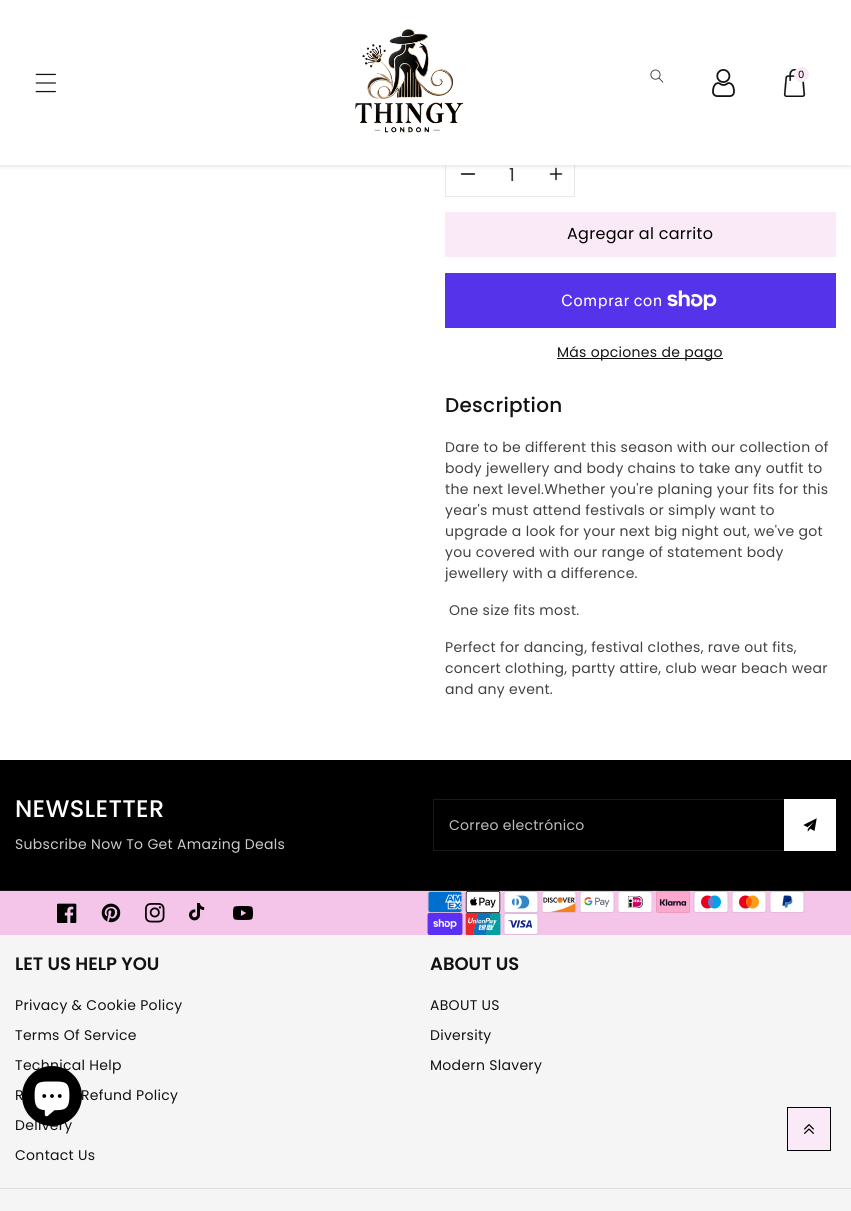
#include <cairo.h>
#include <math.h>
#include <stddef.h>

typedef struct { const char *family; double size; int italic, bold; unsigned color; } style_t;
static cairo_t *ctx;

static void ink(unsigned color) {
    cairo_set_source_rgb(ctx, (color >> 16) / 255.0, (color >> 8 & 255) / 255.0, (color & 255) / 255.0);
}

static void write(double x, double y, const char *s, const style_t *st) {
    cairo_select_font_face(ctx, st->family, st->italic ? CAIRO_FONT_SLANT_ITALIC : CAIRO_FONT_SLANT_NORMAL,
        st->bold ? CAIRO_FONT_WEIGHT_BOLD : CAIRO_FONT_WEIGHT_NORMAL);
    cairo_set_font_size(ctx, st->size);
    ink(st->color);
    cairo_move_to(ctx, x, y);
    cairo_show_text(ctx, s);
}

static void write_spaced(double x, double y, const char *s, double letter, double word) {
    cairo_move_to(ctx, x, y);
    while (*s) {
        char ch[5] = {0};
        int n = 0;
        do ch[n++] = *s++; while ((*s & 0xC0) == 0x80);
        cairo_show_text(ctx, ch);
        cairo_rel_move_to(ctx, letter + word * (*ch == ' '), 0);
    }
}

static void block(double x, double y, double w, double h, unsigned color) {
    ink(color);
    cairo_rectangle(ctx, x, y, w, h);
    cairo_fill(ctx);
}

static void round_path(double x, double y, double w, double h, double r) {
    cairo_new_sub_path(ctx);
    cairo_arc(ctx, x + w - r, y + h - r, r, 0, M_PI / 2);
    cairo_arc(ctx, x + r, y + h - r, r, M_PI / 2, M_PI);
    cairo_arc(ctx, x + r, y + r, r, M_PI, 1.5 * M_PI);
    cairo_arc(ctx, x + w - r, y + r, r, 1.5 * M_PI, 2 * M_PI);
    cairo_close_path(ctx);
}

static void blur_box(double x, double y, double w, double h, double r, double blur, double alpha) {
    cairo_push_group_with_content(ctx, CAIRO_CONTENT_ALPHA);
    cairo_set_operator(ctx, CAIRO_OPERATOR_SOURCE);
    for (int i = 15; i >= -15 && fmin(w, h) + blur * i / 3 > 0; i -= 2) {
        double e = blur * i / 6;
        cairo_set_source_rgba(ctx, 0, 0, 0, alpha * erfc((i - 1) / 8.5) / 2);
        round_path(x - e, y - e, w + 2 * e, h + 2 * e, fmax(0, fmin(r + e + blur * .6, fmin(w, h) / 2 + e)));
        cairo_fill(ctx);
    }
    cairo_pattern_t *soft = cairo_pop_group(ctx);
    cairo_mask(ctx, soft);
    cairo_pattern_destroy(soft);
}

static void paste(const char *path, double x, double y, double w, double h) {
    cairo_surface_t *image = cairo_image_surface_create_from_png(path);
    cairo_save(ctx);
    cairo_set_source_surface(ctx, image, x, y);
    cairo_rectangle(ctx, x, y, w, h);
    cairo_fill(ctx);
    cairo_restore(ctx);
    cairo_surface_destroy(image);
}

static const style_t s1 = {"Poppins", 18, 0, 0, 0x363636};
static const style_t s2 = {"Poppins SemiBold", 18, 0, 0, 0x121212};

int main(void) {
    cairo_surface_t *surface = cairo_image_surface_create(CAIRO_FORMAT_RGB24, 851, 1211);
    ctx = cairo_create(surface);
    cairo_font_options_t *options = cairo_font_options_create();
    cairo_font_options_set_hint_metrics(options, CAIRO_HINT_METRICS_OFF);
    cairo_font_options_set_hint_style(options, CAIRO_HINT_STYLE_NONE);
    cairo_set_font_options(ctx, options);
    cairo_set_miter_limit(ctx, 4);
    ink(0xffffff);
    cairo_paint(ctx);
    paste("pic6.png", 460, 173, 16, 2);
    paste("pic7.png", 549, 167, 14, 14);
    cairo_rectangle(ctx, 445.5, 152.5, 129, 44);
    ink(0xe7e7e7);
    cairo_set_line_width(ctx, 1);
    cairo_stroke(ctx);
    ink(0x121212);
    blur_box(0, 2, 851, 165, 0, 2, 0.1);
    block(0, 0, 851, 165, 0xffffff);
    paste("pic1.png", 35, 73, 21, 20);
    paste("pic2.png", 355, 28, 109, 105);
    paste("pic3.png", 650, 69, 14, 14);
    paste("pic4.png", 712, 69, 23, 28);
    paste("pic5.png", 783, 69, 23, 28);
    ink(0xfae9f6);
    cairo_arc(ctx, 801.5, 74.5, 7.5, 0, 2 * M_PI);
    cairo_fill(ctx);
    cairo_select_font_face(ctx, "Poppins", CAIRO_FONT_SLANT_NORMAL, CAIRO_FONT_WEIGHT_NORMAL);
    cairo_set_font_size(ctx, 10);
    ink(0x000000);
    write_spaced(798, 78, "0", 0.3, 0);
    write(509, 181, "1", &s1);
    block(445, 212, 391, 45, 0xfae9f6);
    cairo_set_font_size(ctx, 16);
    ink(0x000000);
    write_spaced(567, 239, "Agregar al carrito", 0.3, 0);
    block(445, 273, 391, 55, 0x5433eb);
    cairo_select_font_face(ctx, "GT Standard", CAIRO_FONT_SLANT_NORMAL, CAIRO_FONT_WEIGHT_NORMAL);
    ink(0xffffff);
    write_spaced(561, 306, "Comprar con", 0.3, 0);
    paste("pic8.png", 667, 290, 50, 20);
    block(557, 358, 166, 1, 0x121212);
    cairo_select_font_face(ctx, "Poppins", CAIRO_FONT_SLANT_NORMAL, CAIRO_FONT_WEIGHT_NORMAL);
    cairo_set_font_size(ctx, 14);
    write_spaced(557, 357, "Más opciones de pago", 0.3, 0);
    cairo_select_font_face(ctx, "Poppins Medium", CAIRO_FONT_SLANT_NORMAL, CAIRO_FONT_WEIGHT_NORMAL);
    cairo_set_font_size(ctx, 20);
    write_spaced(445, 412, "Description", 0.3, 0);
    cairo_select_font_face(ctx, "Poppins", CAIRO_FONT_SLANT_NORMAL, CAIRO_FONT_WEIGHT_NORMAL);
    cairo_set_font_size(ctx, 14);
    ink(0x414141);
    write_spaced(445, 452, "Dare to be different this season with our collection of", 0.3, 0);
    write_spaced(445, 473, "body jewellery and body chains to take any outfit to", 0.3, 0);
    write_spaced(445, 494, "the next level.Whether you're planing your fits for this", 0.3, 0);
    write_spaced(445, 515, "year's must attend festivals or simply want to", 0.3, 0);
    write_spaced(445, 536, "upgrade a look for your next big night out, we've got", 0.3, 0);
    write_spaced(445, 557, "you covered with our range of statement body", 0.3, 0);
    write_spaced(445, 578, "jewellery with a difference.", 0.3, 0);
    write_spaced(449, 615, "One size fits most.", 0.3, 0);
    write_spaced(445, 652, "Perfect for dancing, festival clothes, rave out fits,", 0.3, 0);
    write_spaced(445, 673, "concert clothing, partty attire, club wear beach wear", 0.3, 0);
    write_spaced(445, 694, "and any event.", 0.3, 0);
    block(0, 935, 851, 276, 0xf5f5f5);
    block(0, 760, 851, 130, 0x000000);
    block(0, 890, 851, 1, 0x171717);
    cairo_select_font_face(ctx, "Poppins Medium", CAIRO_FONT_SLANT_NORMAL, CAIRO_FONT_WEIGHT_NORMAL);
    cairo_set_font_size(ctx, 24);
    ink(0xffffff);
    write_spaced(15, 817, "NEWSLETTER", 0.3, 0);
    cairo_select_font_face(ctx, "Poppins", CAIRO_FONT_SLANT_NORMAL, CAIRO_FONT_WEIGHT_NORMAL);
    cairo_set_font_size(ctx, 14);
    ink(0xcccccc);
    write_spaced(15, 849, "Subscribe Now To Get Amazing Deals", 0.3, 0);
    block(784, 799, 52, 52, 0xffffff);
    paste("pic9.png", 803, 818, 14, 14);
    cairo_rectangle(ctx, 433.5, 799.5, 402, 51);
    cairo_set_source_rgba(ctx, 1, 1, 1, 0.1);
    cairo_stroke(ctx);
    ink(0xbfbfbf);
    write_spaced(449, 830, "Correo electrónico", 0.3, 0);
    block(0, 891, 851, 44, 0xf4c5e9);
    paste("pic10.png", 57, 903, 20, 20);
    paste("pic11.png", 101, 903, 20, 20);
    paste("pic12.png", 145, 903, 20, 20);
    paste("pic13.png", 189, 903, 16, 18);
    paste("pic14.png", 233, 906, 20, 14);
    paste("pic15.png", 427, 891, 36, 22);
    paste("pic16.png", 465, 891, 36, 22);
    paste("pic17.png", 503, 891, 36, 22);
    paste("pic18.png", 541, 891, 36, 22);
    paste("pic19.png", 579, 891, 36, 22);
    paste("pic20.png", 618, 891, 34, 22);
    paste("pic21.png", 656, 891, 34, 22);
    paste("pic22.png", 693, 891, 36, 22);
    paste("pic23.png", 731, 891, 36, 22);
    paste("pic24.png", 769, 891, 36, 22);
    paste("pic25.png", 427, 913, 36, 22);
    paste("pic26.png", 465, 913, 36, 22);
    paste("pic27.png", 503, 913, 36, 22);
    write(15, 970, "LET US HELP YOU", &s2);
    cairo_select_font_face(ctx, "Poppins", CAIRO_FONT_SLANT_NORMAL, CAIRO_FONT_WEIGHT_NORMAL);
    cairo_set_font_size(ctx, 14);
    write_spaced(15, 1010, "Privacy & Cookie Policy", 0.3, 0);
    write_spaced(15, 1040, "Terms Of Service", 0.3, 0);
    write_spaced(15, 1070, "Technical Help", 0.3, 0);
    write_spaced(15, 1100, "R", 0.3, 0);
    write_spaced(81, 1100, "Refund Policy", 0.3, 0);
    write_spaced(15, 1130, "Delivery", 0.3, 0);
    write_spaced(15, 1160, "Contact Us", 0.3, 0);
    write(430, 970, "ABOUT US", &s2);
    cairo_select_font_face(ctx, "Poppins", CAIRO_FONT_SLANT_NORMAL, CAIRO_FONT_WEIGHT_NORMAL);
    cairo_set_font_size(ctx, 14);
    write_spaced(430, 1010, "ABOUT US", 0.3, 0);
    write_spaced(430, 1040, "Diversity", 0.3, 0);
    write_spaced(430, 1070, "Modern Slavery", 0.3, 0);
    ink(0xfae9f6);
    cairo_rectangle(ctx, 787.5, 1107.5, 43, 43);
    cairo_fill_preserve(ctx);
    ink(0x000000);
    cairo_stroke(ctx);
    paste("pic28.png", 804, 1124, 10, 10);
    block(0, 1188, 851, 1, 0xdedede);
    ink(0x000000);
    cairo_arc(ctx, 52, 1096, 30, 0, 2 * M_PI);
    cairo_fill(ctx);
    paste("pic29.png", 34, 1081, 36, 36);
    cairo_surface_write_to_png(surface, "screenshot.png");
    cairo_font_options_destroy(options);
    cairo_destroy(ctx);
    cairo_surface_destroy(surface);
    return 0;
}
